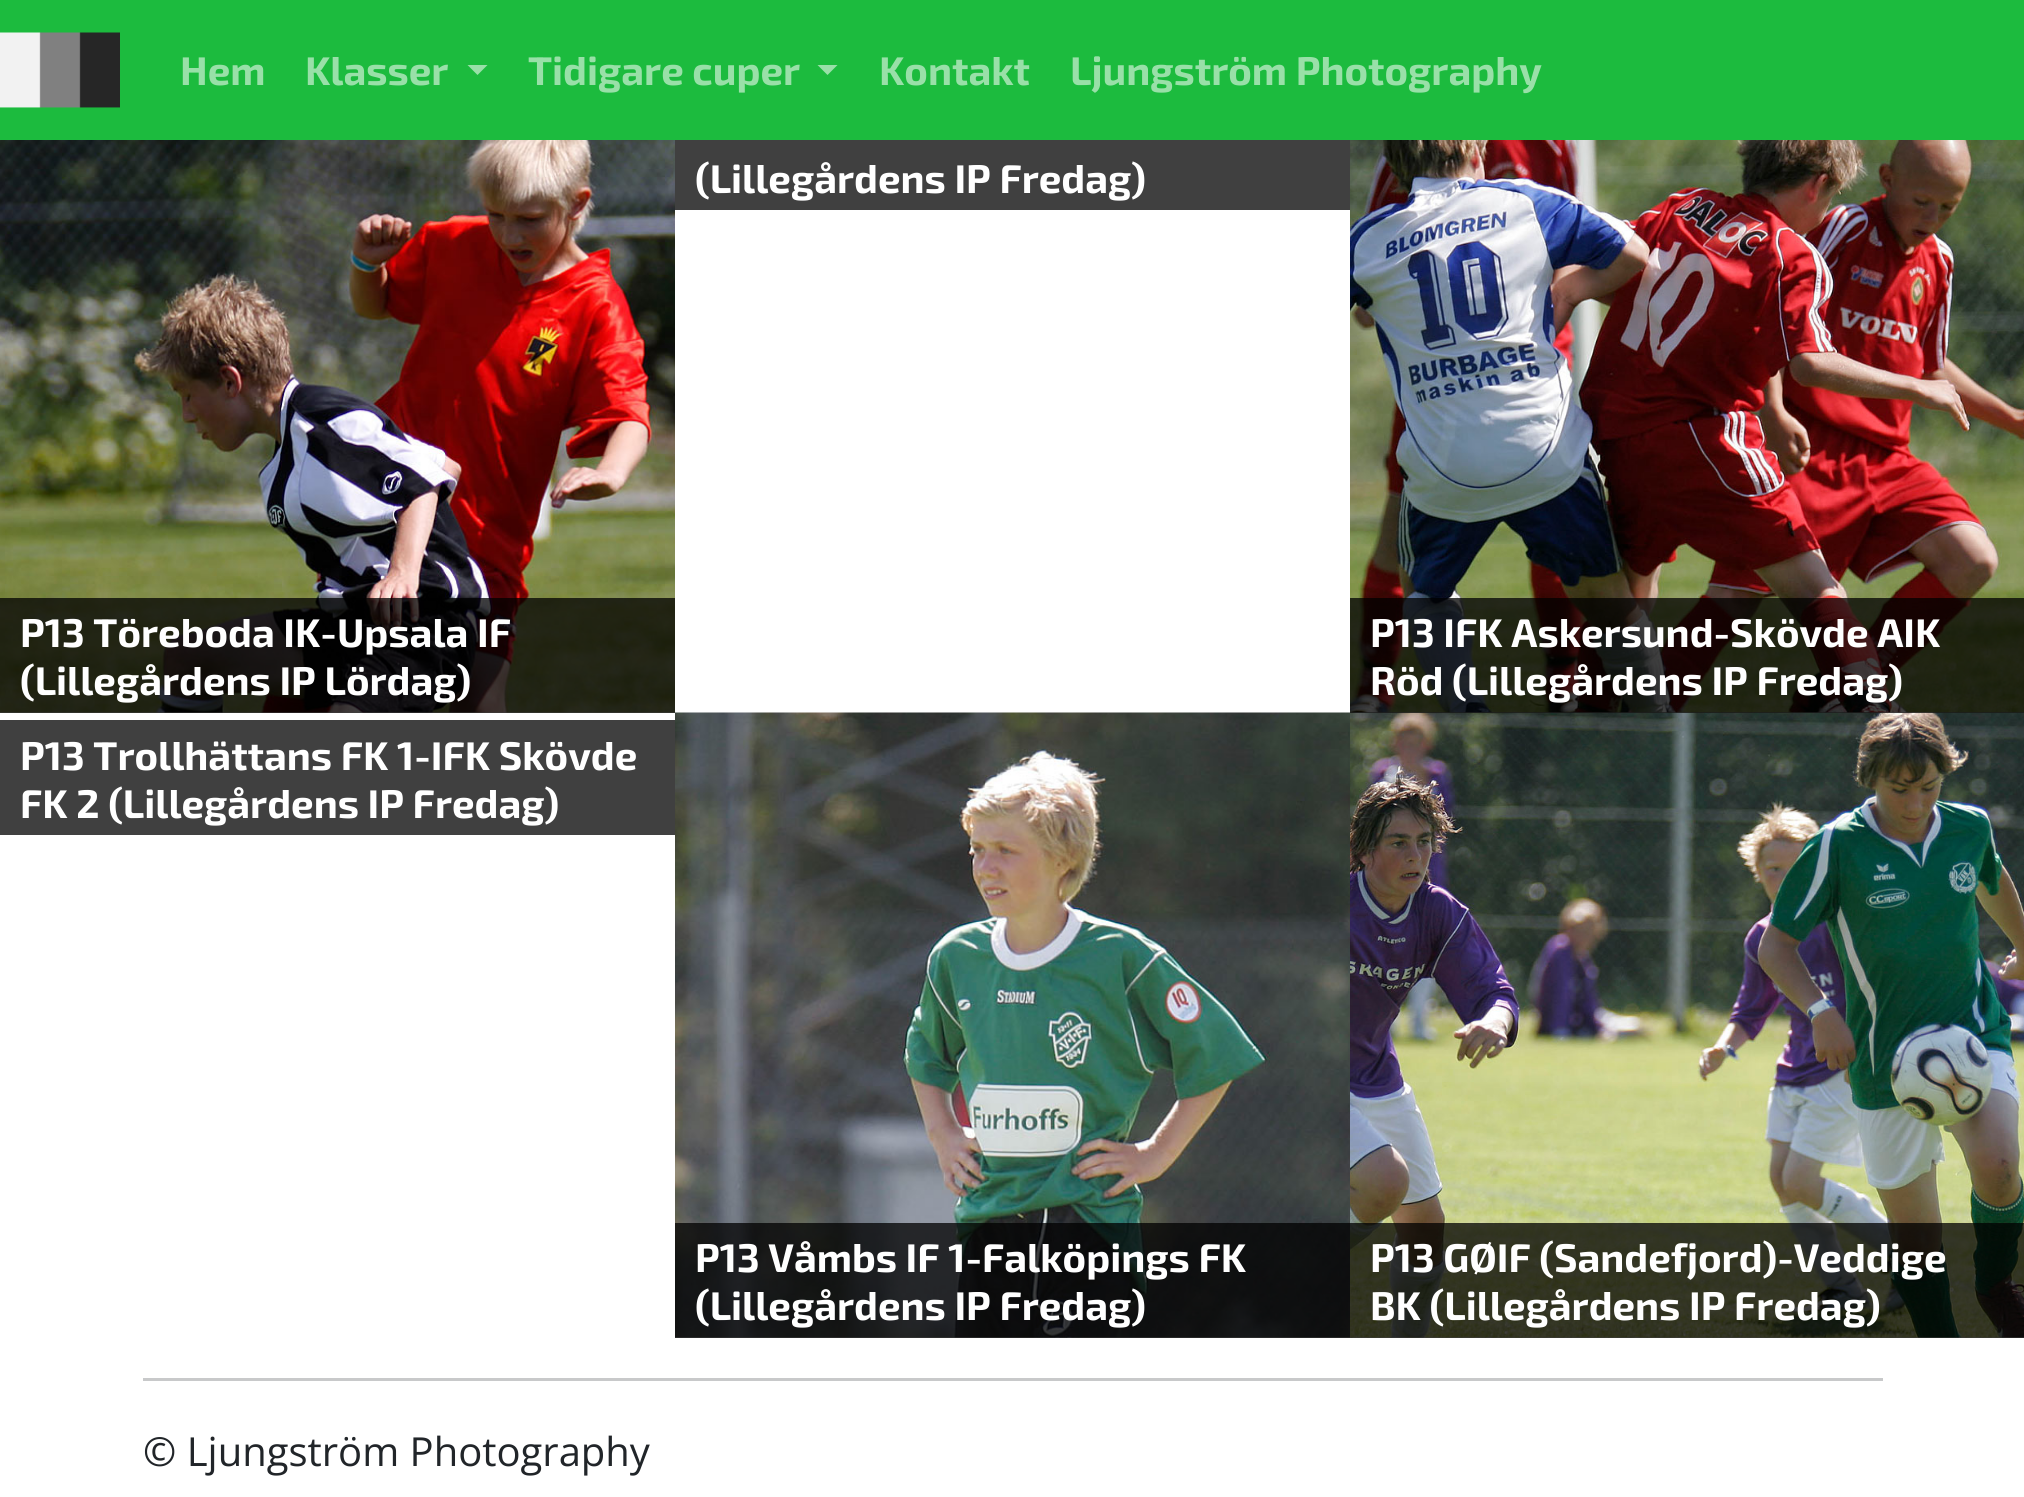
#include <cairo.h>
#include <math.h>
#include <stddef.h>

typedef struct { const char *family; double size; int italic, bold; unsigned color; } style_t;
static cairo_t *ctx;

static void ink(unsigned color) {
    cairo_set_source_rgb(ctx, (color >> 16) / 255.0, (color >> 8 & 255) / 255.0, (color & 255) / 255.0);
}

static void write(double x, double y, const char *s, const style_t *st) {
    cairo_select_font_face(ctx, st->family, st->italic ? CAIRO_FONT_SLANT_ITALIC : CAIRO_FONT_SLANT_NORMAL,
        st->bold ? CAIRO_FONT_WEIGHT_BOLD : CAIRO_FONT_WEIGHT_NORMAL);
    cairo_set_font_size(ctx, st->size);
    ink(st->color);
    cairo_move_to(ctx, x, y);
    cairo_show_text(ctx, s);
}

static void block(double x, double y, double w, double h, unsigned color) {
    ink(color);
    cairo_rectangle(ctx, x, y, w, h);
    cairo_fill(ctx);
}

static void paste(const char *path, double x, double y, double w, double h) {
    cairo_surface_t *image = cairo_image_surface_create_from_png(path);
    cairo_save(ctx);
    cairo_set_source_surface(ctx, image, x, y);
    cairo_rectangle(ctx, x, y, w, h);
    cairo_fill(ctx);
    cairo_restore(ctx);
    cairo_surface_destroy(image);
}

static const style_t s1 = {"Exo 2", 40, 0, 1, 0x99e0a8};
static const style_t s2 = {"Exo 2", 40, 0, 1, 0xffffff};
static const style_t s3 = {"Open Sans", 40, 0, 0, 0x212529};

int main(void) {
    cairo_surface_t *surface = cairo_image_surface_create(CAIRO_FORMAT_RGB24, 2024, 1497);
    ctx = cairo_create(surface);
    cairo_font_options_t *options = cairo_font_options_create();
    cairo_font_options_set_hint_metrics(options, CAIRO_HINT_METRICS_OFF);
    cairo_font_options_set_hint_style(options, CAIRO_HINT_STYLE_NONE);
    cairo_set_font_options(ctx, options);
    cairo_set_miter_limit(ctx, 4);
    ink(0xffffff);
    cairo_paint(ctx);
    block(0, 0, 2024, 140, 0x1cbb3e);
    paste("pic1.png", 0, 32, 120, 76);
    write(180, 85, "Hem", &s1);
    write(305, 85, "Klasser", &s1);
    cairo_new_path(ctx);
    cairo_move_to(ctx, 467.5, 65);
    cairo_line_to(ctx, 487.5, 65);
    cairo_line_to(ctx, 477.5, 75);
    cairo_close_path(ctx);
    cairo_fill(ctx);
    write(528, 85, "Tidigare cuper", &s1);
    cairo_new_path(ctx);
    cairo_move_to(ctx, 817.5, 65);
    cairo_line_to(ctx, 837.5, 65);
    cairo_line_to(ctx, 827.5, 75);
    cairo_close_path(ctx);
    cairo_fill(ctx);
    write(879, 85, "Kontakt", &s1);
    write(1070, 85, "Ljungström Photography", &s1);
    block(675, 140, 675, 70, 0x404040);
    write(695, 193, "(Lillegårdens IP Fredag)", &s2);
    paste("pic2.png", 0, 140, 675, 573);
    cairo_set_source_rgba(ctx, 0, 0, 0, 0.75);
    cairo_rectangle(ctx, 0, 598, 675, 115);
    cairo_fill(ctx);
    write(20, 647, "P13 Töreboda IK-Upsala IF", &s2);
    write(20, 695, "(Lillegårdens IP Lördag)", &s2);
    paste("pic3.png", 1350, 140, 674, 573);
    paste("pic5.png", 1350, 712, 674, 626);
    cairo_set_source_rgba(ctx, 0, 0, 0, 0.75);
    cairo_rectangle(ctx, 1350, 598, 674, 115);
    cairo_fill(ctx);
    write(1370, 647, "P13 IFK Askersund-Skövde AIK", &s2);
    write(1370, 695, "Röd (Lillegårdens IP Fredag)", &s2);
    block(0, 720, 675, 115, 0x404040);
    write(20, 770, "P13 Trollhättans FK 1-IFK Skövde", &s2);
    write(20, 818, "FK 2 (Lillegårdens IP Fredag)", &s2);
    paste("pic4.png", 675, 712, 675, 626);
    cairo_set_source_rgba(ctx, 0, 0, 0, 0.75);
    cairo_rectangle(ctx, 675, 1223, 675, 115);
    cairo_fill(ctx);
    write(695, 1272, "P13 Våmbs IF 1-Falköpings FK", &s2);
    write(695, 1320, "(Lillegårdens IP Fredag)", &s2);
    cairo_set_source_rgba(ctx, 0, 0, 0, 0.75);
    cairo_rectangle(ctx, 1350, 1223, 674, 115);
    cairo_fill(ctx);
    write(1370, 1272, "P13 GØIF (Sandefjord)-Veddige", &s2);
    write(1370, 1320, "BK (Lillegårdens IP Fredag)", &s2);
    block(143, 1378, 1740, 3, 0xc8c9ca);
    write(143, 1466, "© Ljungström Photography", &s3);
    cairo_surface_write_to_png(surface, "screenshot.png");
    cairo_font_options_destroy(options);
    cairo_destroy(ctx);
    cairo_surface_destroy(surface);
    return 0;
}
